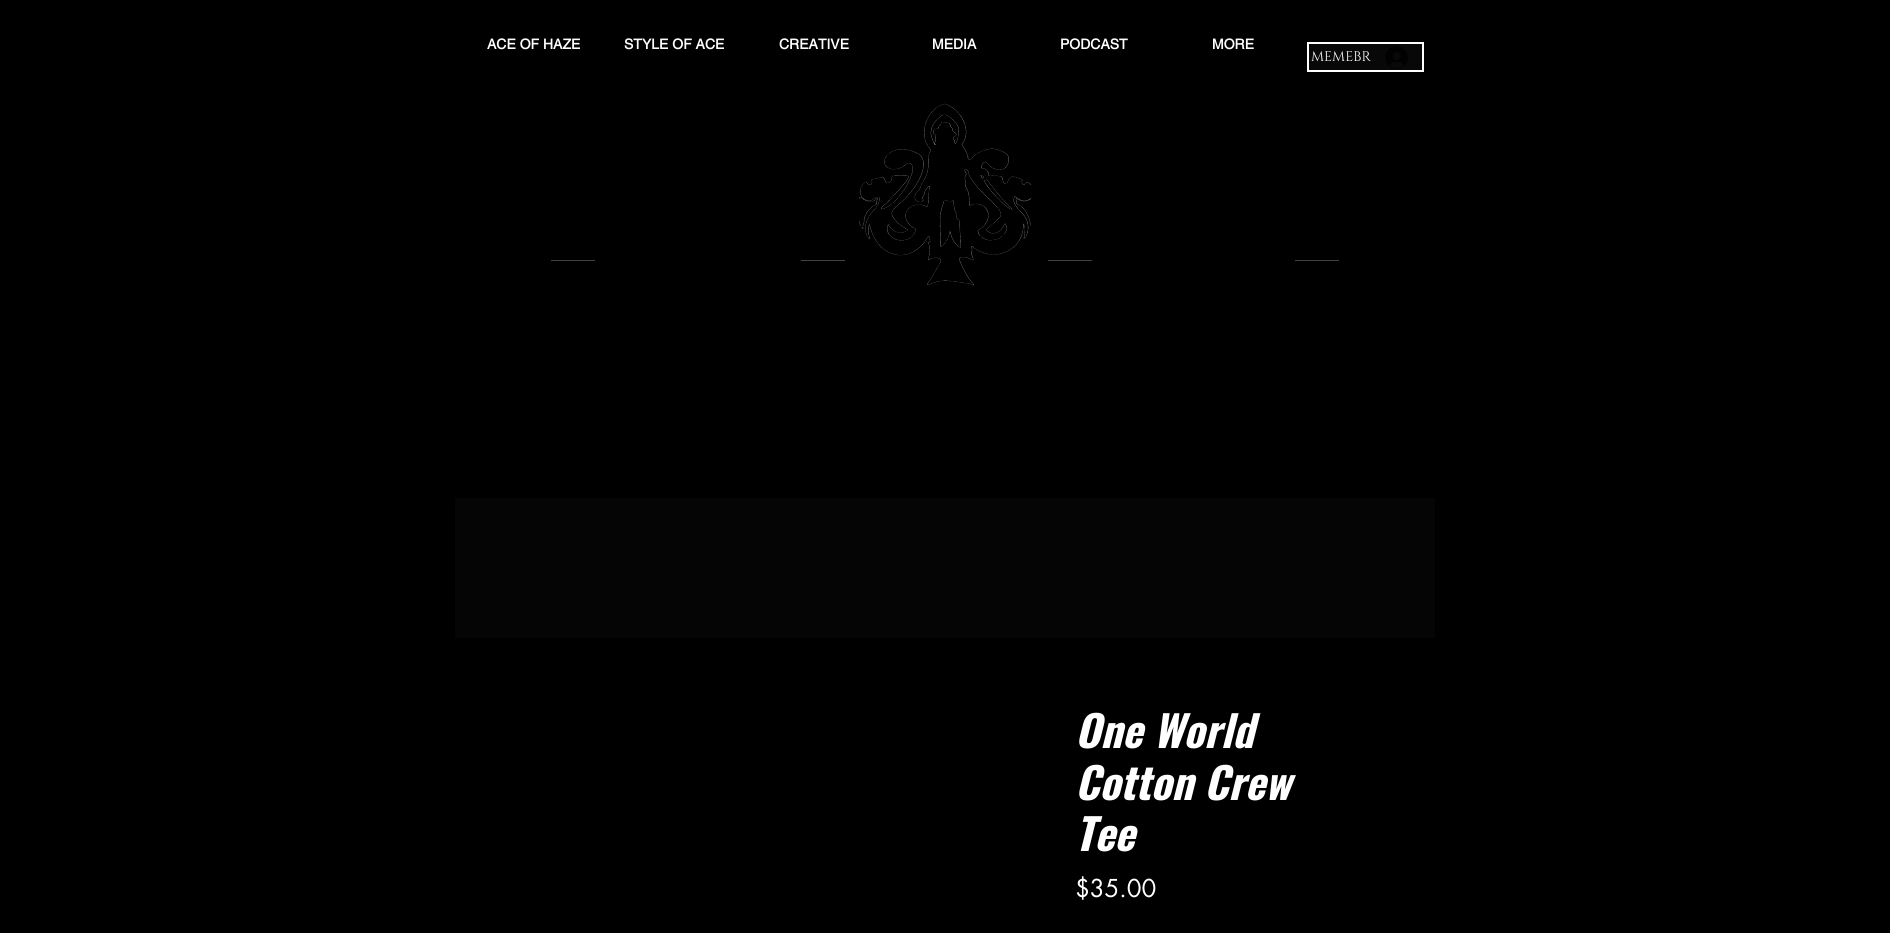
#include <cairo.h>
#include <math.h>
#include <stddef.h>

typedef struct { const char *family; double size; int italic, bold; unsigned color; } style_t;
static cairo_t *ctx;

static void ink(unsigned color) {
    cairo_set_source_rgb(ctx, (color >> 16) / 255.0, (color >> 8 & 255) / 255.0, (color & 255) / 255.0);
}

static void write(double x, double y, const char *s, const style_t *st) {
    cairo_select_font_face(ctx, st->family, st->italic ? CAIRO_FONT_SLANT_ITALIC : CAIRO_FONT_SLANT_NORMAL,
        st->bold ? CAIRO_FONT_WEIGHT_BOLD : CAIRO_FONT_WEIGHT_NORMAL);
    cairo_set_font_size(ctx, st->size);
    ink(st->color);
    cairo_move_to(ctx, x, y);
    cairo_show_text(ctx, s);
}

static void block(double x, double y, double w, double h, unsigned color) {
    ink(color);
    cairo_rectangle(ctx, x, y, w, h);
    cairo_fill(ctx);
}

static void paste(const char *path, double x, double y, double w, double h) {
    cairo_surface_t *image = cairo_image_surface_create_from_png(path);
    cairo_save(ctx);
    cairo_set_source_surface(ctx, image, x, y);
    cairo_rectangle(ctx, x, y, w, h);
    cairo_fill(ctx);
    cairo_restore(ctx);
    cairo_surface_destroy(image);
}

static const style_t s1 = {"helvetica", 14, 0, 1, 0xffffff};
static const style_t s2 = {"Cinzel", 14, 0, 0, 0xffffff};
static const style_t s3 = {"Oswald", 43, 1, 1, 0xffffff};
static const style_t s4 = {"futura", 24, 0, 0, 0xffffff};

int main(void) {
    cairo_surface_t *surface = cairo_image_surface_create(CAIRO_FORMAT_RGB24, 1890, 933);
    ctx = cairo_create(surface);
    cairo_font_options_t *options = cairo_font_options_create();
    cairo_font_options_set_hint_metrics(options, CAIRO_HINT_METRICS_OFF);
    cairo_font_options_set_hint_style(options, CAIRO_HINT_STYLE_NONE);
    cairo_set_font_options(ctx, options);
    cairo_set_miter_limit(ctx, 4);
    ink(0x000000);
    cairo_paint(ctx);
    write(487, 49, "ACE OF HAZE", &s1);
    write(624, 49, "STYLE OF ACE", &s1);
    write(779, 49, "CREATIVE", &s1);
    write(932, 49, "MEDIA", &s1);
    write(1060, 49, "PODCAST", &s1);
    write(1212, 49, "MORE", &s1);
    ink(0x080808);
    cairo_rectangle(ctx, 1308, 43, 115, 28);
    cairo_fill_preserve(ctx);
    ink(0xffffff);
    cairo_stroke(ctx);
    write(1311, 61, "MEMEBR", &s2);
    paste("pic1.png", 1385, 46, 23, 23);
    paste("pic2.png", 859, 103, 172, 183);
    block(551, 260, 44, 1, 0x424242);
    block(801, 260, 44, 1, 0x424242);
    block(1048, 260, 44, 1, 0x424242);
    block(1295, 260, 44, 1, 0x424242);
    block(455, 498, 980, 140, 0x050505);
    write(1075, 748, "One World", &s3);
    write(1075, 800, "Cotton Crew", &s3);
    write(1075, 851, "Tee", &s3);
    write(1075, 897, "$35.00", &s4);
    cairo_surface_write_to_png(surface, "screenshot.png");
    cairo_font_options_destroy(options);
    cairo_destroy(ctx);
    cairo_surface_destroy(surface);
    return 0;
}
